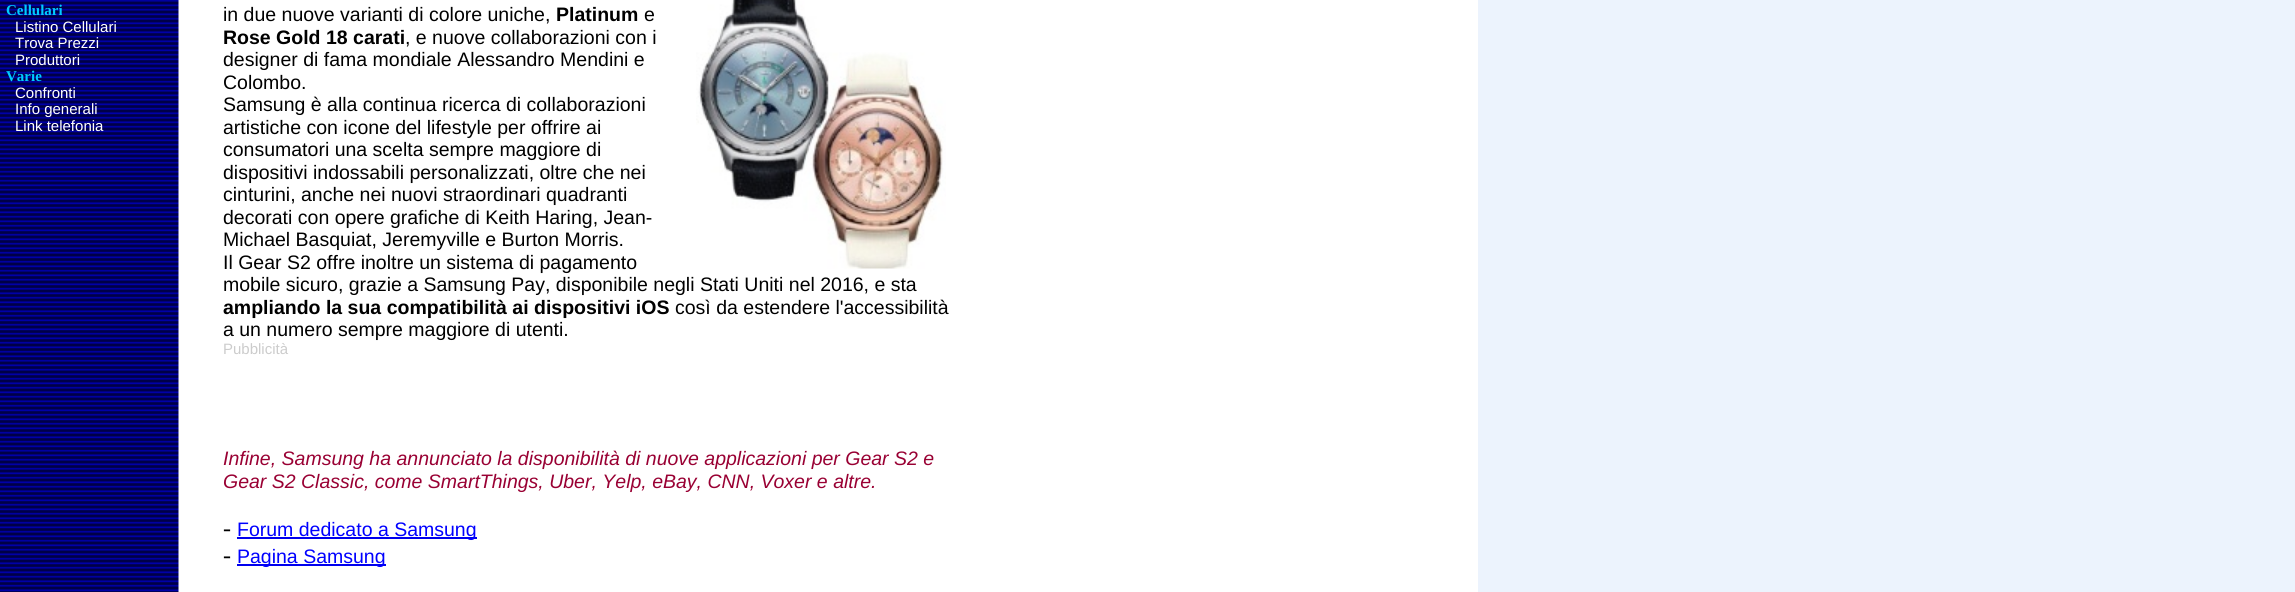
#include <cairo.h>
#include <math.h>
#include <stddef.h>

typedef struct { const char *family; double size; int italic, bold; unsigned color; } style_t;
static cairo_t *ctx;

static void ink(unsigned color) {
    cairo_set_source_rgb(ctx, (color >> 16) / 255.0, (color >> 8 & 255) / 255.0, (color & 255) / 255.0);
}

static void write(double x, double y, const char *s, const style_t *st) {
    cairo_select_font_face(ctx, st->family, st->italic ? CAIRO_FONT_SLANT_ITALIC : CAIRO_FONT_SLANT_NORMAL,
        st->bold ? CAIRO_FONT_WEIGHT_BOLD : CAIRO_FONT_WEIGHT_NORMAL);
    cairo_set_font_size(ctx, st->size);
    ink(st->color);
    cairo_move_to(ctx, x, y);
    cairo_show_text(ctx, s);
}

static void block(double x, double y, double w, double h, unsigned color) {
    ink(color);
    cairo_rectangle(ctx, x, y, w, h);
    cairo_fill(ctx);
}

static void paste(const char *path, double x, double y, double w, double h) {
    cairo_surface_t *image = cairo_image_surface_create_from_png(path);
    cairo_save(ctx);
    cairo_set_source_surface(ctx, image, x, y);
    cairo_rectangle(ctx, x, y, w, h);
    cairo_fill(ctx);
    cairo_restore(ctx);
    cairo_surface_destroy(image);
}

static const style_t s1 = {"Liberation Serif", 15, 0, 1, 0x00ccff};
static const style_t s2 = {"Liberation Sans", 15, 0, 0, 0xffffff};
static const style_t s3 = {"Liberation Sans", 19.5, 0, 0, 0x000000};
static const style_t s4 = {"Liberation Sans", 19.5, 0, 1, 0x000000};
static const style_t s5 = {"Liberation Sans", 15, 0, 0, 0xcccccc};
static const style_t s6 = {"Liberation Sans", 19.5, 1, 0, 0x990033};
static const style_t s7 = {"Liberation Serif", 24, 0, 0, 0x000000};
static const style_t s8 = {"Liberation Sans", 19.5, 0, 0, 0x0000ff};

int main(void) {
    cairo_surface_t *surface = cairo_image_surface_create(CAIRO_FORMAT_RGB24, 2295, 592);
    ctx = cairo_create(surface);
    cairo_font_options_t *options = cairo_font_options_create();
    cairo_font_options_set_hint_metrics(options, CAIRO_HINT_METRICS_OFF);
    cairo_font_options_set_hint_style(options, CAIRO_HINT_STYLE_NONE);
    cairo_set_font_options(ctx, options);
    cairo_set_miter_limit(ctx, 4);
    ink(0xecf3fd);
    cairo_paint(ctx);
    block(178, 0, 1300, 592, 0xffffff);
    paste("pic1.png", 0, 0, 179, 592);
    write(6, 15, "Cellulari", &s1);
    write(15, 32, "Listino Cellulari", &s2);
    write(15, 48, "Trova Prezzi", &s2);
    write(15, 65, "Produttori", &s2);
    write(6, 81, "Varie", &s1);
    write(15, 98, "Confronti", &s2);
    write(15, 114, "Info generali", &s2);
    write(15, 131, "Link telefonia", &s2);
    write(223, 21, "in due nuove varianti di colore uniche,", &s3);
    write(556, 21, "Platinum", &s4);
    write(644, 21, "e", &s3);
    paste("pic2.png", 696, 0, 250, 269);
    write(223, 44, "Rose Gold 18 carati", &s4);
    write(405, 44, ", e nuove collaborazioni con i", &s3);
    write(223, 66, "designer di fama mondiale Alessandro Mendini e", &s3);
    write(223, 89, "Colombo.", &s3);
    write(223, 111, "Samsung è alla continua ricerca di collaborazioni", &s3);
    write(223, 134, "artistiche con icone del lifestyle per offrire ai", &s3);
    write(223, 156, "consumatori una scelta sempre maggiore di", &s3);
    write(223, 179, "dispositivi indossabili personalizzati, oltre che nei", &s3);
    write(223, 201, "cinturini, anche nei nuovi straordinari quadranti", &s3);
    write(223, 224, "decorati con opere grafiche di Keith Haring, Jean-", &s3);
    write(223, 246, "Michael Basquiat, Jeremyville e Burton Morris.", &s3);
    write(223, 269, "Il Gear S2 offre inoltre un sistema di pagamento", &s3);
    write(223, 291, "mobile sicuro, grazie a Samsung Pay, disponibile negli Stati Uniti nel 2016, e sta", &s3);
    write(223, 314, "ampliando la sua compatibilità ai dispositivi iOS", &s4);
    write(675, 314, "così da estendere l'accessibilità", &s3);
    write(223, 336, "a un numero sempre maggiore di utenti.", &s3);
    write(223, 354, "Pubblicità", &s5);
    write(223, 465, "Infine, Samsung ha annunciato la disponibilità di nuove applicazioni per Gear S2 e", &s6);
    write(223, 488, "Gear S2 Classic, come SmartThings, Uber, Yelp, eBay, CNN, Voxer e altre.", &s6);
    write(223, 536, "-", &s7);
    block(237, 537, 240, 2, 0x0000ee);
    write(237, 536, "Forum dedicato a Samsung", &s8);
    write(223, 563, "-", &s7);
    block(237, 564, 149, 2, 0x0000ee);
    write(237, 563, "Pagina Samsung", &s8);
    cairo_surface_write_to_png(surface, "screenshot.png");
    cairo_font_options_destroy(options);
    cairo_destroy(ctx);
    cairo_surface_destroy(surface);
    return 0;
}
